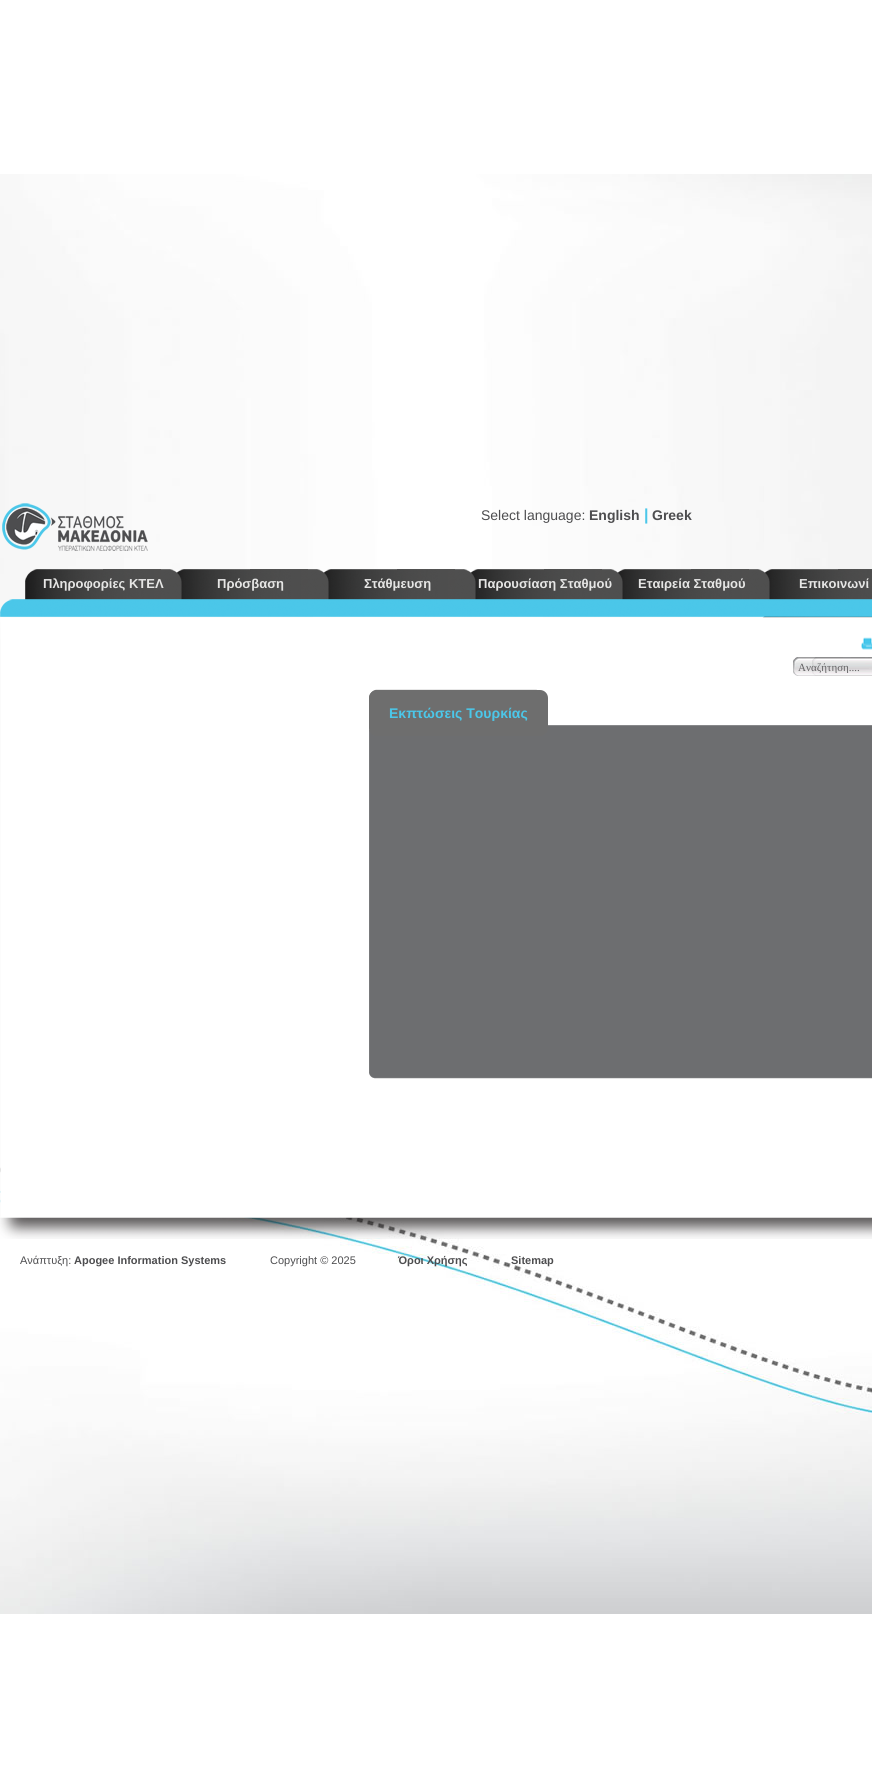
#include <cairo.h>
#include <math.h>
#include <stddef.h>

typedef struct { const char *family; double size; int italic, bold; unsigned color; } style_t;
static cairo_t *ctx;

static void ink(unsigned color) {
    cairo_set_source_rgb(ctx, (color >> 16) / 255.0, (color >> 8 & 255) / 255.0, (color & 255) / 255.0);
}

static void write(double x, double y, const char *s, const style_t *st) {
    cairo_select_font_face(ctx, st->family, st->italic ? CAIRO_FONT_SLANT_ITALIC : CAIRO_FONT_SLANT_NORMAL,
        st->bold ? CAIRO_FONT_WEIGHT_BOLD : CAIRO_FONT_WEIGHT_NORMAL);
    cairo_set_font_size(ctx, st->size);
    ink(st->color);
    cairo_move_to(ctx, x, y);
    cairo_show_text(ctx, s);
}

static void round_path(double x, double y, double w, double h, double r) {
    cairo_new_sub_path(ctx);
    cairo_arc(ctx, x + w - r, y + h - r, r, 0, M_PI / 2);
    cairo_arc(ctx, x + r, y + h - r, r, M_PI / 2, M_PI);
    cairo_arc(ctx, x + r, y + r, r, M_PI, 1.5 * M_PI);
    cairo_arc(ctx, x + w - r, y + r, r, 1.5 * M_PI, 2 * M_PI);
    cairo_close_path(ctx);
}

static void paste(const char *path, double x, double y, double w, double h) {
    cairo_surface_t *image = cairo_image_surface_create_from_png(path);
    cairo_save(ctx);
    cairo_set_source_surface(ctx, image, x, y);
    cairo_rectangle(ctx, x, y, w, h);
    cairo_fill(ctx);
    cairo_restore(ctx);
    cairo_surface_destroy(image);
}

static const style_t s1 = {"Liberation Sans", 14, 0, 0, 0x4d4d4f};
static const style_t s2 = {"Liberation Sans", 14, 0, 1, 0x4d4d4f};
static const style_t s3 = {"Liberation Sans", 16, 0, 1, 0x4bc7e9};
static const style_t s4 = {"Liberation Sans", 13, 0, 1, 0xe6e6e5};
static const style_t s5 = {"Liberation Serif", 11, 0, 0, 0x636264};
static const style_t s6 = {"Liberation Sans", 14, 0, 1, 0x4bc7e9};
static const style_t s7 = {"Liberation Sans", 11, 0, 0, 0x4d4d4f};
static const style_t s8 = {"Liberation Sans", 11, 0, 1, 0x4d4d4f};

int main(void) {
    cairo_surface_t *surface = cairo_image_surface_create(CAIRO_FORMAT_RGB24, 872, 1787);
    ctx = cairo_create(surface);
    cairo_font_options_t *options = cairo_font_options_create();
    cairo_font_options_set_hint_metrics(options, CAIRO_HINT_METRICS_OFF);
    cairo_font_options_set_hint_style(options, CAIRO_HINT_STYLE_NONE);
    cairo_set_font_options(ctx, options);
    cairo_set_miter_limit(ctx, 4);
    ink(0xffffff);
    cairo_paint(ctx);
    paste("pic1.png", 0, 174, 872, 1440);
    write(481, 520, "Select language:", &s1);
    write(589, 520, "English", &s2);
    write(644, 520, "|", &s3);
    write(652, 520, "Greek", &s2);
    paste("pic2.png", 2, 503, 146, 48);
    paste("pic8.png", 764, 569, 108, 31);
    paste("pic7.png", 617, 569, 153, 31);
    paste("pic6.png", 470, 569, 153, 31);
    paste("pic5.png", 323, 569, 153, 31);
    paste("pic4.png", 176, 569, 153, 31);
    paste("pic3.png", 25, 569, 157, 31);
    write(43, 588, "Πληροφορίες ΚΤΕΛ", &s4);
    write(217, 588, "Πρόσβαση", &s4);
    write(364, 588, "Στάθμευση", &s4);
    write(478, 588, "Παρουσίαση Σταθμού", &s4);
    write(638, 588, "Εταιρεία Σταθμού", &s4);
    write(799, 588, "Επικοινωνί", &s4);
    paste("pic9.png", 762, 616, 110, 2);
    paste("pic10.png", 0, 617, 872, 622);
    paste("pic11.png", 0, 599, 872, 18);
    paste("pic12.png", 861, 637, 11, 13);
    paste("pic13.png", 812, 657, 60, 19);
    paste("pic14.png", 793, 657, 79, 19);
    cairo_save(ctx);
    cairo_rectangle(ctx, 798, 661, 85, 12);
    cairo_clip(ctx);
    write(798, 671, "Αναζήτηση....", &s5);
    cairo_restore(ctx);
    paste("pic15.png", 369, 689, 503, 390);
    ink(0x6e6e6e);
    round_path(369, 690, 179, 46, 8);
    cairo_fill(ctx);
    write(389, 718, "Εκπτώσεις Τουρκίας", &s6);
    write(20, 1264, "Ανάπτυξη:", &s7);
    write(74, 1264, "Apogee Information Systems", &s8);
    write(270, 1264, "Copyright © 2025", &s7);
    write(398, 1264, "Όροι Χρήσης", &s8);
    write(511, 1264, "Sitemap", &s8);
    cairo_surface_write_to_png(surface, "screenshot.png");
    cairo_font_options_destroy(options);
    cairo_destroy(ctx);
    cairo_surface_destroy(surface);
    return 0;
}
